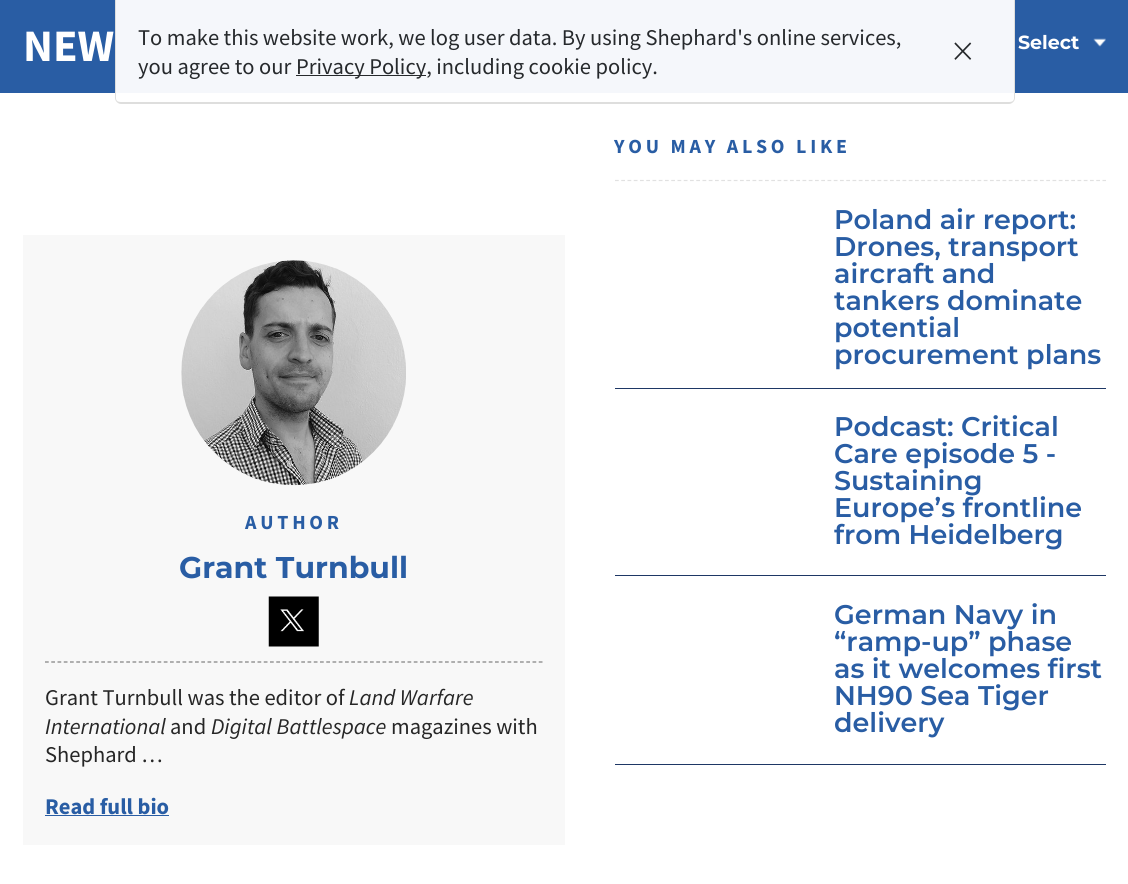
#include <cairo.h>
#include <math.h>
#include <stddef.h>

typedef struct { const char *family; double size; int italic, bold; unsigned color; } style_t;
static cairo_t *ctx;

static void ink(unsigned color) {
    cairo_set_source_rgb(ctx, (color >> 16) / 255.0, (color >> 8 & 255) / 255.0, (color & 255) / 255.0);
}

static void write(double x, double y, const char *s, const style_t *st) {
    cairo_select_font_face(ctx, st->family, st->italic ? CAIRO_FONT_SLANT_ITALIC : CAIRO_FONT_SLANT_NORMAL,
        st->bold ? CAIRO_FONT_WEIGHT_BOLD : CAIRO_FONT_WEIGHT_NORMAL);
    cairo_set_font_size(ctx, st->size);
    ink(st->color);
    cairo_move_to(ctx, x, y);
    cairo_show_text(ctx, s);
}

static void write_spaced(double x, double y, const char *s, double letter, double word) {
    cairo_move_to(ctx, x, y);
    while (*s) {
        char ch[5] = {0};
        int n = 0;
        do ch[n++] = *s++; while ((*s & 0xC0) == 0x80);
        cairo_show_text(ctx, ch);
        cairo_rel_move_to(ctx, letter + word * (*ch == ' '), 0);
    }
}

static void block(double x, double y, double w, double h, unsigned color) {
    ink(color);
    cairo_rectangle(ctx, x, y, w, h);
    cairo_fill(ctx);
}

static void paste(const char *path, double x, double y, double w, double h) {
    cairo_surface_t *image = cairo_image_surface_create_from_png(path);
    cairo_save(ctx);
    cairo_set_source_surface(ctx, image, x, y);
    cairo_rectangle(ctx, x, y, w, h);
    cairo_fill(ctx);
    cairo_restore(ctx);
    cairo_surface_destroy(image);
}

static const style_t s1 = {"Source Sans Pro", 22.5, 0, 0, 0x26292c};
static const style_t s2 = {"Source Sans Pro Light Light", 45, 0, 0, 0x26292c};
static const style_t s3 = {"Source Sans Pro", 45, 0, 1, 0xffffff};
static const style_t s4 = {"Montserrat", 19, 0, 1, 0xffffff};
static const style_t s5 = {"Montserrat", 30, 0, 1, 0x295da4};
static const style_t s6 = {"Source Sans Pro", 22.5, 0, 0, 0x262626};
static const style_t s7 = {"Source Sans Pro", 22.5, 1, 0, 0x262626};
static const style_t s8 = {"Source Sans Pro", 22.5, 0, 1, 0x295da4};
static const style_t s9 = {"Montserrat SemiBold", 27, 0, 0, 0x295da4};

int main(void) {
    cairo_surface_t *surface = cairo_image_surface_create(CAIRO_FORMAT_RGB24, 1128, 884);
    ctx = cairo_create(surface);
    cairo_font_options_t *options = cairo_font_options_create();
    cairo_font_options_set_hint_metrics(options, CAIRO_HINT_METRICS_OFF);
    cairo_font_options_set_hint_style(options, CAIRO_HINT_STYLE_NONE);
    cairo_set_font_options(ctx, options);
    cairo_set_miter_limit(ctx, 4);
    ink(0xffffff);
    cairo_paint(ctx);
    block(0, 0, 1128, 93, 0x295da4);
    cairo_set_source_rgba(ctx, 1, 1, 1, 0.95);
    cairo_new_path(ctx);
    cairo_move_to(ctx, 115, 0);
    cairo_line_to(ctx, 1015, 0);
    cairo_line_to(ctx, 1015, 98);
    cairo_curve_to(ctx, 1015, 101.5, 1012.5, 104, 1009, 104);
    cairo_line_to(ctx, 121, 104);
    cairo_curve_to(ctx, 117.5, 104, 115, 101.5, 115, 98);
    cairo_close_path(ctx);
    cairo_fill(ctx);
    cairo_set_source_rgba(ctx, 0.867, 0.867, 0.863, 0.95);
    cairo_set_fill_rule(ctx, CAIRO_FILL_RULE_EVEN_ODD);
    cairo_new_path(ctx);
    cairo_move_to(ctx, 115, 0);
    cairo_line_to(ctx, 1015, 0);
    cairo_line_to(ctx, 1015, 98);
    cairo_curve_to(ctx, 1015, 101, 1012, 104, 1009, 104);
    cairo_line_to(ctx, 121, 104);
    cairo_curve_to(ctx, 118, 104, 115, 101, 115, 98);
    cairo_close_path(ctx);
    cairo_move_to(ctx, 116, 0);
    cairo_line_to(ctx, 1014, 0);
    cairo_line_to(ctx, 1014, 98);
    cairo_curve_to(ctx, 1014, 101, 1012, 102, 1009, 102);
    cairo_line_to(ctx, 121, 102);
    cairo_curve_to(ctx, 118, 102, 116, 101, 116, 98);
    cairo_close_path(ctx);
    cairo_fill(ctx);
    write(138, 45, "To make this website work, we log user data. By using Shephard's online services,", &s1);
    write(138, 74, "you agree to our", &s1);
    block(296, 75, 130, 1, 0x26292c);
    write(296, 74, "Privacy Policy, including cookie policy.", &s1);
    write(952, 66, "×", &s2);
    write(23, 61, "NEW", &s3);
    paste("pic1.png", 1093, 38, 13, 9);
    write(1018, 49, "Select", &s4);
    block(23, 235, 542, 610, 0xf8f8f8);
    paste("pic2.png", 181, 260, 225, 226);
    cairo_select_font_face(ctx, "Source Sans Pro", CAIRO_FONT_SLANT_NORMAL, CAIRO_FONT_WEIGHT_BOLD);
    cairo_set_font_size(ctx, 20);
    ink(0x295da4);
    write_spaced(245, 529, "AUTHOR", 3.75, 0);
    write(179, 578, "Grant Turnbull", &s5);
    paste("pic3.png", 268, 596, 51, 51);
    cairo_new_path(ctx);
    cairo_move_to(ctx, 45, 662);
    cairo_line_to(ctx, 542.5, 662);
    ink(0x808080);
    cairo_set_line_width(ctx, 1.2);
    cairo_set_dash(ctx, (double[]){3.75, 2.5}, 2, 0);
    cairo_stroke(ctx);
    write(45, 705, "Grant Turnbull was the editor of", &s6);
    write(349, 705, "Land Warfare", &s7);
    write(45, 734, "International", &s7);
    write(170, 734, "and", &s6);
    write(211, 734, "Digital Battlespace", &s7);
    write(391, 734, "magazines with", &s6);
    write(45, 762, "Shephard …", &s6);
    write(45, 814, "Read full bio", &s8);
    block(45, 815, 124, 1, 0x295da4);
    cairo_new_path(ctx);
    cairo_move_to(ctx, 615, 180.5);
    cairo_line_to(ctx, 1106, 180.5);
    ink(0xe1e1e1);
    cairo_stroke(ctx);
    cairo_set_font_size(ctx, 20);
    ink(0x295da4);
    write_spaced(614, 153, "YOU MAY ALSO LIKE", 3.75, 0);
    block(615, 388, 491, 1, 0x1e3765);
    write(834, 229, "Poland air report:", &s9);
    write(834, 256, "Drones, transport", &s9);
    write(834, 283, "aircraft and", &s9);
    write(834, 310, "tankers dominate", &s9);
    write(834, 337, "potential", &s9);
    write(834, 364, "procurement plans", &s9);
    block(615, 575, 491, 1, 0x1e3765);
    write(834, 436, "Podcast: Critical", &s9);
    write(834, 463, "Care episode 5 -", &s9);
    write(834, 490, "Sustaining", &s9);
    write(834, 517, "Europe’s frontline", &s9);
    write(834, 544, "from Heidelberg", &s9);
    block(615, 764, 491, 1, 0x1e3765);
    write(834, 624, "German Navy in", &s9);
    write(834, 651, "“ramp-up” phase", &s9);
    write(834, 678, "as it welcomes first", &s9);
    write(834, 705, "NH90 Sea Tiger", &s9);
    write(834, 732, "delivery", &s9);
    cairo_surface_write_to_png(surface, "screenshot.png");
    cairo_font_options_destroy(options);
    cairo_destroy(ctx);
    cairo_surface_destroy(surface);
    return 0;
}
